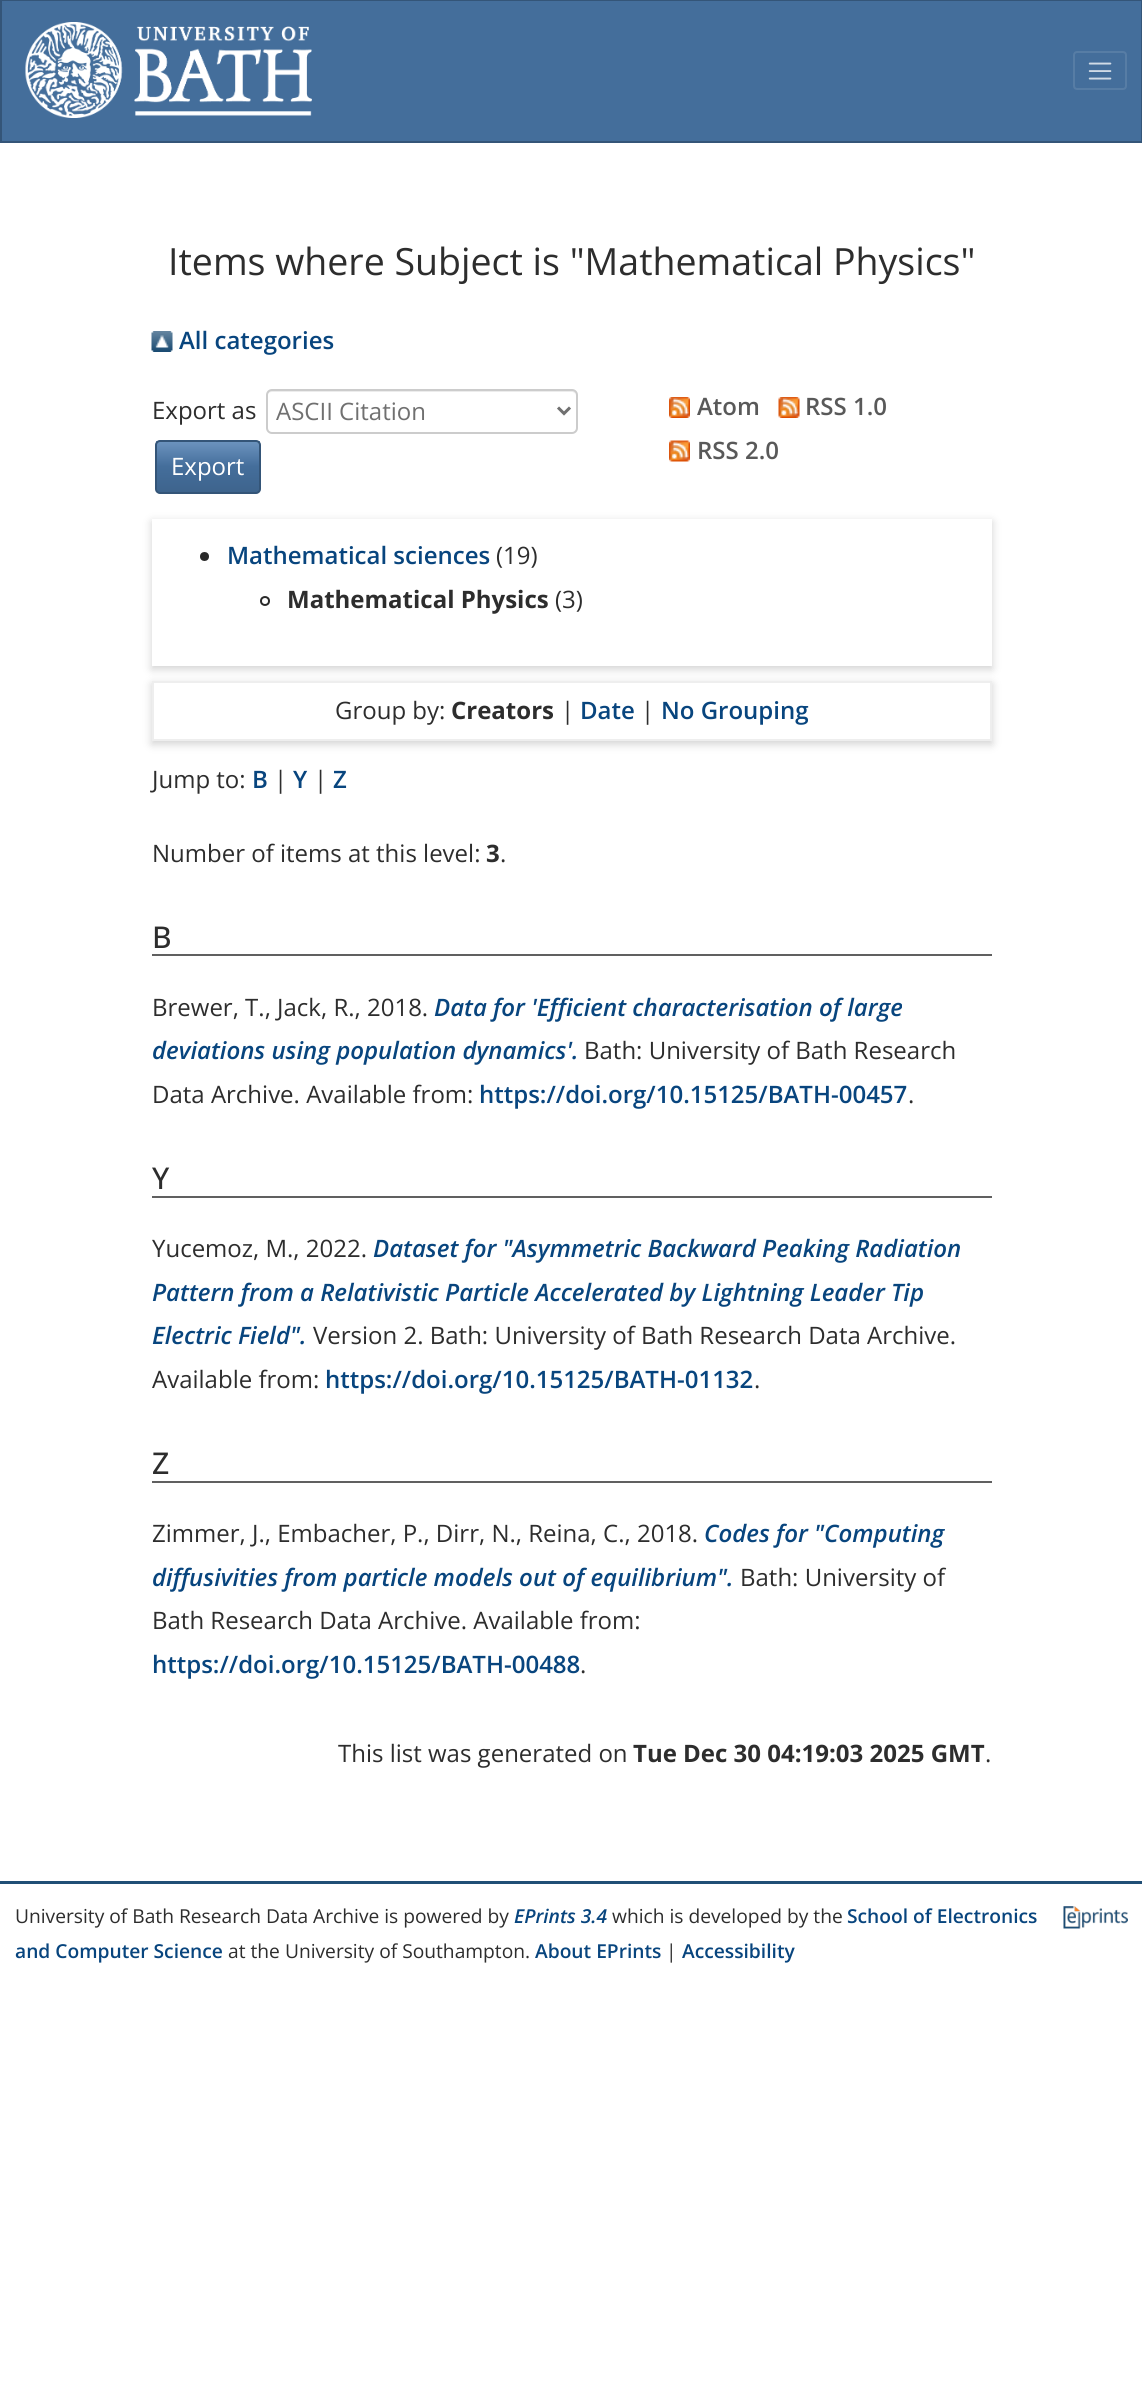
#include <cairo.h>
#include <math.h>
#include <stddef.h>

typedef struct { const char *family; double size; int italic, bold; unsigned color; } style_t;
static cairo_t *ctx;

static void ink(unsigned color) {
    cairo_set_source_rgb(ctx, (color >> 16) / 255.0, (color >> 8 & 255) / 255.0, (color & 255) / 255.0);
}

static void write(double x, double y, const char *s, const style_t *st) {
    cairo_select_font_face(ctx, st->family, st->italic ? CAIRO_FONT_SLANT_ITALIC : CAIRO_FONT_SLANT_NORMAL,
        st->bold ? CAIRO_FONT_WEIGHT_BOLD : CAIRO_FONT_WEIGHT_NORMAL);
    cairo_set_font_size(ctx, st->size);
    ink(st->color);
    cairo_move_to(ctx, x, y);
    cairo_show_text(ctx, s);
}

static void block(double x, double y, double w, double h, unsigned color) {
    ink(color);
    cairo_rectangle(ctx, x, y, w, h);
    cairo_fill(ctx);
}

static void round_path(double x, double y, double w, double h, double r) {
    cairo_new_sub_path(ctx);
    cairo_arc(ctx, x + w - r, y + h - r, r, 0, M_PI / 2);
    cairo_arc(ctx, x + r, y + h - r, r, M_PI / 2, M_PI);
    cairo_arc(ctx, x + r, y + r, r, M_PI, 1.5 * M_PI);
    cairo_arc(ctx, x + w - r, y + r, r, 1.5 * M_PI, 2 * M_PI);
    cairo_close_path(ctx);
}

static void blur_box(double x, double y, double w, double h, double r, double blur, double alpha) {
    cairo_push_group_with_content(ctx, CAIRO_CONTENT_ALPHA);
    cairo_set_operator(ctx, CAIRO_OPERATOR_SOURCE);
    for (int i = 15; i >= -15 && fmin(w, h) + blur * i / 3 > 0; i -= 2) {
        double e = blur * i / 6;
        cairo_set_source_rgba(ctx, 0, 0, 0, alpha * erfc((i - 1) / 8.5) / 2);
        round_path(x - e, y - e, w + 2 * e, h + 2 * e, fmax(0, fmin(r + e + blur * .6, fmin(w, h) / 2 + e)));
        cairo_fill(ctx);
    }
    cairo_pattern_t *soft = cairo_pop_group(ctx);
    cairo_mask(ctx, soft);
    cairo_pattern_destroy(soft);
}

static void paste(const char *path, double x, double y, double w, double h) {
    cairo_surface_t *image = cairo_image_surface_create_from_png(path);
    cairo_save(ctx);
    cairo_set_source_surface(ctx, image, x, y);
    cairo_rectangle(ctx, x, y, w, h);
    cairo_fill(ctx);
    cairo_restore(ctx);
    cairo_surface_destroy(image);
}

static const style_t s1 = {"Open Sans", 37.5, 0, 0, 0x2d2d2d};
static const style_t s2 = {"Open Sans SemiBold", 24, 0, 0, 0x08457e};
static const style_t s3 = {"Open Sans", 24, 0, 0, 0x2d2d2d};
static const style_t s4 = {"Open Sans", 24, 0, 0, 0x707070};
static const style_t s5 = {"Open Sans", 24, 0, 0, 0xffffff};
static const style_t s6 = {"Open Sans SemiBold", 24, 0, 0, 0x595959};
static const style_t s7 = {"Open Sans", 24, 0, 1, 0x2d2d2d};
static const style_t s8 = {"Open Sans Medium", 30, 0, 0, 0x2d2d2d};
static const style_t s9 = {"Open Sans SemiBold", 24, 1, 0, 0x08457e};
static const style_t s10 = {"Open Sans", 19.2, 0, 0, 0x2d2d2d};
static const style_t s11 = {"Open Sans SemiBold", 19.2, 1, 0, 0x08457e};
static const style_t s12 = {"Open Sans SemiBold", 19.2, 0, 0, 0x08457e};

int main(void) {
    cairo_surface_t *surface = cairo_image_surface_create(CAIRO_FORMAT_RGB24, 1142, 2385);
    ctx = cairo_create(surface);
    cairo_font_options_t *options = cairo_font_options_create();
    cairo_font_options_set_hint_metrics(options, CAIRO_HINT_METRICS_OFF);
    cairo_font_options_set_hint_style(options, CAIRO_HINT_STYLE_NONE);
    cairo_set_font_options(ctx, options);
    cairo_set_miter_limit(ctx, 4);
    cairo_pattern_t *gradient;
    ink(0xffffff);
    cairo_paint(ctx);
    ink(0x446e9b);
    cairo_rectangle(ctx, 1, 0, 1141, 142);
    cairo_fill_preserve(ctx);
    ink(0x345578);
    cairo_stroke(ctx);
    paste("pic1.png", 25, 22, 287, 96);
    round_path(1074, 52, 52, 37, 3);
    ink(0x577da5);
    cairo_stroke(ctx);
    paste("pic2.png", 1088, 62, 24, 18);
    write(168, 275, "Items where Subject is \"Mathematical Physics\"", &s1);
    paste("pic3.png", 151, 331, 22, 21);
    write(179, 349, "All categories", &s2);
    write(152, 419, "Export as", &s3);
    ink(0xececec);
    cairo_new_path(ctx);
    cairo_move_to(ctx, 272, 392);
    cairo_line_to(ctx, 572, 392);
    cairo_curve_to(ctx, 574, 392, 576, 394, 576, 396);
    cairo_curve_to(ctx, 576, 393, 574, 390, 571, 390);
    cairo_line_to(ctx, 272, 390);
    cairo_curve_to(ctx, 269, 390, 267, 393, 267, 396);
    cairo_curve_to(ctx, 267, 394, 269, 392, 272, 392);
    cairo_close_path(ctx);
    cairo_fill(ctx);
    round_path(267, 390, 310, 43, 5);
    ink(0xcccccc);
    cairo_stroke(ctx);
    cairo_new_path(ctx);
    cairo_move_to(ctx, 558, 407.5);
    cairo_line_to(ctx, 564, 413.5);
    cairo_line_to(ctx, 570, 407.5);
    ink(0x707070);
    cairo_set_line_width(ctx, 3);
    cairo_stroke(ctx);
    write(276, 420, "ASCII Citation", &s4);
    gradient = cairo_pattern_create_linear(208, 441, 208, 492);
    cairo_pattern_add_color_stop_rgba(gradient, 0, 0.427, 0.58, 0.749, 1);
    cairo_pattern_add_color_stop_rgba(gradient, 0.5, 0.267, 0.431, 0.608, 1);
    cairo_pattern_add_color_stop_rgba(gradient, 1, 0.243, 0.392, 0.553, 1);
    cairo_set_source(ctx, gradient);
    cairo_pattern_destroy(gradient);
    cairo_rectangle(ctx, 156, 441, 104, 51);
    cairo_fill(ctx);
    round_path(156, 441, 104, 52, 4);
    ink(0x345578);
    cairo_set_line_width(ctx, 2);
    cairo_stroke(ctx);
    write(171, 475, "Export", &s5);
    paste("pic4.png", 669, 397, 21, 21);
    write(697, 415, "Atom", &s6);
    paste("pic5.png", 778, 397, 22, 21);
    write(805, 415, "RSS 1.0", &s6);
    paste("pic6.png", 669, 440, 21, 22);
    write(697, 459, "RSS 2.0", &s6);
    cairo_save(ctx);
    cairo_set_fill_rule(ctx, CAIRO_FILL_RULE_EVEN_ODD);
    cairo_new_path(ctx);
    cairo_move_to(ctx, 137, 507);
    cairo_line_to(ctx, 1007, 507);
    cairo_line_to(ctx, 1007, 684);
    cairo_line_to(ctx, 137, 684);
    cairo_close_path(ctx);
    cairo_move_to(ctx, 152, 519);
    cairo_line_to(ctx, 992, 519);
    cairo_line_to(ctx, 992, 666);
    cairo_line_to(ctx, 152, 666);
    cairo_close_path(ctx);
    cairo_clip(ctx);
    ink(0x646464);
    blur_box(152, 522, 840, 147, 0, 4.5, 0.3);
    cairo_restore(ctx);
    ink(0x292929);
    cairo_arc(ctx, 204.5, 556.5, 4.5, 0, 2 * M_PI);
    cairo_fill(ctx);
    write(227, 564, "Mathematical sciences", &s2);
    write(496, 564, "(19)", &s3);
    cairo_new_path(ctx);
    cairo_arc(ctx, 265, 601, 4, 0, 2 * M_PI);
    ink(0x292929);
    cairo_stroke(ctx);
    write(287, 608, "Mathematical Physics", &s7);
    write(555, 608, "(3)", &s3);
    ink(0x646464);
    blur_box(152, 684, 840, 60, 0, 4.5, 0.3);
    ink(0xffffff);
    cairo_rectangle(ctx, 153, 682, 838, 58);
    cairo_fill_preserve(ctx);
    ink(0xeeeeee);
    cairo_stroke(ctx);
    write(335, 719, "Group by:", &s3);
    write(451, 719, "Creators", &s7);
    write(561, 719, "|", &s3);
    write(580, 719, "Date", &s2);
    write(641, 719, "|", &s3);
    write(661, 719, "No Grouping", &s2);
    write(152, 788, "Jump to:", &s3);
    write(252, 788, "B", &s2);
    write(274, 788, "|", &s3);
    write(293, 788, "Y", &s2);
    write(314, 788, "|", &s3);
    write(333, 788, "Z", &s2);
    write(152, 862, "Number of items at this level:", &s3);
    write(486, 862, "3", &s7);
    write(500, 862, ".", &s3);
    block(152, 954, 840, 2, 0x606060);
    write(152, 948, "B", &s8);
    write(152, 1016, "Brewer, T., Jack, R., 2018.", &s3);
    write(434, 1016, "Data for 'Efficient characterisation of large", &s9);
    write(152, 1059, "deviations using population dynamics'.", &s9);
    write(584, 1059, "Bath: University of Bath Research", &s3);
    write(152, 1103, "Data Archive. Available from:", &s3);
    write(479, 1103, "https://doi.org/10.15125/BATH-00457", &s2);
    write(908, 1103, ".", &s3);
    block(152, 1196, 840, 2, 0x606060);
    write(152, 1189, "Y", &s8);
    write(152, 1257, "Yucemoz, M., 2022.", &s3);
    write(373, 1257, "Dataset for \"Asymmetric Backward Peaking Radiation", &s9);
    write(152, 1301, "Pattern from a Relativistic Particle Accelerated by Lightning Leader Tip", &s9);
    write(152, 1344, "Electric Field\".", &s9);
    write(313, 1344, "Version 2. Bath: University of Bath Research Data Archive.", &s3);
    write(152, 1388, "Available from:", &s3);
    write(325, 1388, "https://doi.org/10.15125/BATH-01132", &s2);
    write(754, 1388, ".", &s3);
    block(152, 1481, 840, 2, 0x606060);
    write(152, 1474, "Z", &s8);
    write(152, 1542, "Zimmer, J., Embacher, P., Dirr, N., Reina, C., 2018.", &s3);
    write(704, 1542, "Codes for \"Computing", &s9);
    write(152, 1586, "diffusivities from particle models out of equilibrium\".", &s9);
    write(740, 1586, "Bath: University of", &s3);
    write(152, 1629, "Bath Research Data Archive. Available from:", &s3);
    write(152, 1673, "https://doi.org/10.15125/BATH-00488", &s2);
    write(580, 1673, ".", &s3);
    write(338, 1762, "This list was generated on", &s3);
    write(633, 1762, "Tue Dec 30 04:19:03 2025 GMT", &s7);
    write(985, 1762, ".", &s3);
    block(0, 1881, 1142, 3, 0x204f76);
    write(15, 1923, "University of Bath Research Data Archive is powered by", &s10);
    write(514, 1923, "EPrints 3.4", &s11);
    write(612, 1923, "which is developed by the", &s10);
    write(847, 1923, "School of Electronics", &s12);
    paste("pic7.png", 1063, 1906, 65, 23);
    write(15, 1958, "and Computer Science", &s12);
    write(228, 1958, "at the University of Southampton.", &s10);
    write(535, 1958, "About EPrints", &s12);
    write(666, 1958, "|", &s10);
    write(682, 1958, "Accessibility", &s12);
    cairo_surface_write_to_png(surface, "screenshot.png");
    cairo_font_options_destroy(options);
    cairo_destroy(ctx);
    cairo_surface_destroy(surface);
    return 0;
}
